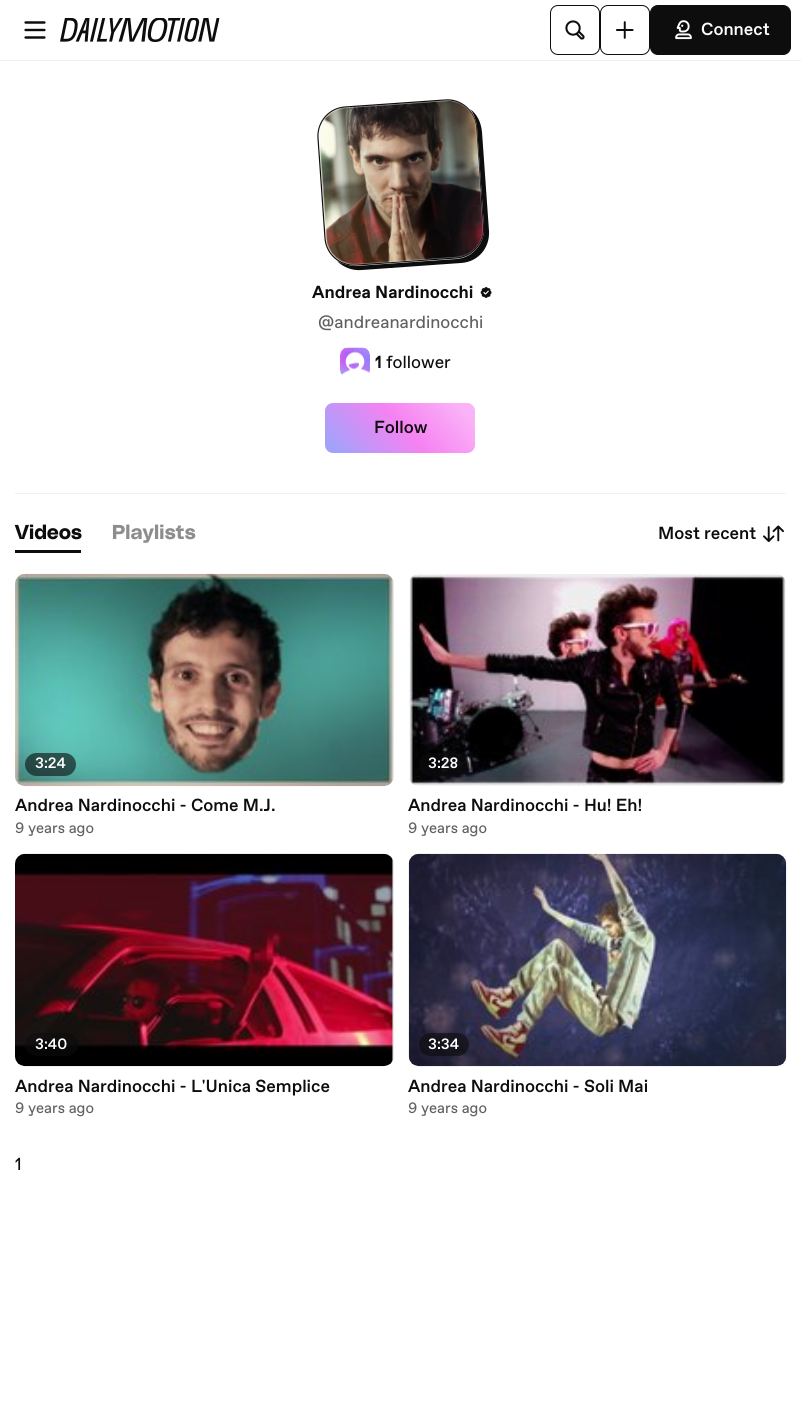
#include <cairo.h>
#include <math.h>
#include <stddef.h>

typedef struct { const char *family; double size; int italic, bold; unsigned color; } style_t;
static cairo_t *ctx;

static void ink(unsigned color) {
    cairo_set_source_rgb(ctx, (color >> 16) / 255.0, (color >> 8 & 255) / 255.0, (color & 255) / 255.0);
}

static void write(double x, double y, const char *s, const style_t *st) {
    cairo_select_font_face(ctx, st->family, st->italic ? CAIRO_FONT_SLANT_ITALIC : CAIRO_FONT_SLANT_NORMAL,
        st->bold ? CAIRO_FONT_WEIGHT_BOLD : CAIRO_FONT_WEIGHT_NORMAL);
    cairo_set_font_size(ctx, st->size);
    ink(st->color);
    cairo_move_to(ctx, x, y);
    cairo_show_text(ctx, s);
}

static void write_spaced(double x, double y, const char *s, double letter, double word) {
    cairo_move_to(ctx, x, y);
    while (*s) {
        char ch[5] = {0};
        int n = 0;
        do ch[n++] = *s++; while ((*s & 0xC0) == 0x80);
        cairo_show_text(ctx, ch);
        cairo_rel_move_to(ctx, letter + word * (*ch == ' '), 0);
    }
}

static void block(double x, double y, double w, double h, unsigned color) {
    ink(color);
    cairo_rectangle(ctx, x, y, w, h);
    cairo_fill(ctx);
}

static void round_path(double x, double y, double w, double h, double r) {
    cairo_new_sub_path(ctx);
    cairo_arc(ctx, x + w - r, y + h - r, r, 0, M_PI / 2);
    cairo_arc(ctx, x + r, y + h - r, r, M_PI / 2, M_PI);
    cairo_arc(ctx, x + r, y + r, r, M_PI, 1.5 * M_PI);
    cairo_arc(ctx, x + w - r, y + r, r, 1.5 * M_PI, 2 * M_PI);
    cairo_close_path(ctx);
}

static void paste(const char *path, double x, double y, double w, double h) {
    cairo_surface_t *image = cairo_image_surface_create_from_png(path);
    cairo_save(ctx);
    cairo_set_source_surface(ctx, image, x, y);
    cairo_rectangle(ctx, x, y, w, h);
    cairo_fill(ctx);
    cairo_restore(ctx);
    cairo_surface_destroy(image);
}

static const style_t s1 = {"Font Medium", 17.5, 0, 0, 0xffffff};
static const style_t s2 = {"Font", 17.5, 0, 1, 0x0d0d0d};
static const style_t s3 = {"Font", 17.5, 0, 0, 0x606060};
static const style_t s4 = {"Font", 17.5, 0, 0, 0x0d0d0d};
static const style_t s5 = {"Font Medium", 17.5, 0, 0, 0x0d0d0d};
static const style_t s6 = {"Font Medium", 15, 0, 0, 0xffffff};
static const style_t s7 = {"Font", 15, 0, 0, 0x606060};

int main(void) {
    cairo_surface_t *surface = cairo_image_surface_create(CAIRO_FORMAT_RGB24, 801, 1401);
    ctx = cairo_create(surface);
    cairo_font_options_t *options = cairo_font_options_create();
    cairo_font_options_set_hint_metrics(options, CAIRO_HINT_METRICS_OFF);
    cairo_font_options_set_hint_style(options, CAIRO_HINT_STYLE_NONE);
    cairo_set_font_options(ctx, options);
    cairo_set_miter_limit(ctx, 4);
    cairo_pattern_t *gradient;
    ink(0xffffff);
    cairo_paint(ctx);
    block(0, 60, 801, 1, 0xf0f0f0);
    paste("pic1.png", 24, 21, 22, 18);
    paste("pic2.png", 60, 18, 160, 24);
    round_path(550.5, 5.5, 49, 49, 7.5);
    ink(0x0d0d0d);
    cairo_set_line_width(ctx, 1);
    cairo_stroke(ctx);
    paste("pic3.png", 565, 20, 20, 20);
    round_path(600.5, 5.5, 49, 49, 7.5);
    cairo_stroke(ctx);
    paste("pic4.png", 616, 21, 18, 18);
    round_path(650.5, 5.5, 140, 49, 7.5);
    cairo_fill_preserve(ctx);
    cairo_stroke(ctx);
    paste("pic5.png", 675, 20, 17, 20);
    write(701, 35, "Connect", &s1);
    block(15, 493, 771, 1, 0xf0f0f0);
    ink(0x0d0d0d);
    cairo_new_path(ctx);
    cairo_move_to(ctx, 337, 261);
    cairo_curve_to(ctx, 343, 267, 352, 271, 362, 270);
    cairo_line_to(ctx, 461, 263);
    cairo_curve_to(ctx, 478, 262, 490, 248, 489, 231);
    cairo_line_to(ctx, 482, 132);
    cairo_curve_to(ctx, 481, 122, 477, 114, 470, 109);
    cairo_curve_to(ctx, 474, 114, 476, 120, 477, 127);
    cairo_line_to(ctx, 484, 227);
    cairo_curve_to(ctx, 485, 243, 473, 258, 456, 259);
    cairo_line_to(ctx, 356, 266);
    cairo_curve_to(ctx, 349, 266, 343, 264, 337, 261);
    cairo_close_path(ctx);
    cairo_fill(ctx);
    cairo_new_path(ctx);
    cairo_move_to(ctx, 345, 107);
    cairo_line_to(ctx, 445, 100);
    cairo_curve_to(ctx, 461, 98.5, 475, 111, 476.5, 127);
    cairo_line_to(ctx, 483.5, 227);
    cairo_curve_to(ctx, 484.5, 243, 472, 257, 456, 258);
    cairo_line_to(ctx, 356.5, 265);
    cairo_curve_to(ctx, 340, 266.5, 326, 254, 325, 238);
    cairo_line_to(ctx, 318, 138);
    cairo_curve_to(ctx, 317, 122, 329, 108, 345, 107);
    cairo_close_path(ctx);
    cairo_set_line_width(ctx, 1.2);
    cairo_stroke(ctx);
    paste("pic6.png", 318, 99, 166, 166);
    write(312, 298, "Andrea Nardinocchi", &s2);
    paste("pic7.png", 480, 287, 12, 11);
    write(318, 328, "@andreanardinocchi", &s3);
    paste("pic8.png", 340, 347, 30, 28);
    round_path(339.5, 346.5, 31, 32, 8.5);
    ink(0xffffff);
    cairo_set_line_width(ctx, 1);
    cairo_stroke(ctx);
    write(375, 368, "1", &s2);
    write(386, 368, "follower", &s4);
    gradient = cairo_pattern_create_linear(454, 379, 346, 476);
    cairo_pattern_add_color_stop_rgba(gradient, 0.09, 0.98, 0.702, 0.969, 1);
    cairo_pattern_add_color_stop_rgba(gradient, 0.48, 0.965, 0.51, 0.949, 1);
    cairo_pattern_add_color_stop_rgba(gradient, 0.94, 0.635, 0.635, 0.984, 1);
    cairo_set_source(ctx, gradient);
    cairo_pattern_destroy(gradient);
    round_path(325, 403, 150, 50, 8);
    cairo_fill(ctx);
    write(374, 433, "Follow", &s5);
    block(15, 550, 66, 3, 0x0d0d0d);
    cairo_select_font_face(ctx, "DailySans", CAIRO_FONT_SLANT_NORMAL, CAIRO_FONT_WEIGHT_BOLD);
    cairo_set_font_size(ctx, 20);
    write_spaced(15, 539, "Videos", 0.25, 0);
    ink(0x8d8d8d);
    write_spaced(112, 539, "Playlists", 0.25, 0);
    write(658, 539, "Most recent", &s5);
    paste("pic9.png", 763, 525, 21, 17);
    ink(0xe8e8e8);
    round_path(15, 574, 379, 212, 10);
    cairo_fill(ctx);
    paste("pic10.png", 15, 573, 378, 214);
    cairo_set_source_rgba(ctx, 0.051, 0.051, 0.051, 0.6);
    round_path(25, 753, 51, 23, 11.5);
    cairo_fill(ctx);
    write(35, 768, "3:24", &s6);
    write(15, 811, "Andrea Nardinocchi - Come M.J.", &s5);
    write(15, 833, "9 years ago", &s7);
    paste("pic11.png", 409, 574, 377, 212);
    cairo_set_source_rgba(ctx, 0.051, 0.051, 0.051, 0.6);
    round_path(419, 753, 50, 23, 11.5);
    cairo_fill(ctx);
    write(428, 768, "3:28", &s6);
    write(408, 811, "Andrea Nardinocchi - Hu! Eh!", &s5);
    write(408, 833, "9 years ago", &s7);
    ink(0xe8e8e8);
    round_path(15, 854, 379, 212, 10);
    cairo_fill(ctx);
    paste("pic12.png", 15, 853, 378, 214);
    cairo_set_source_rgba(ctx, 0.051, 0.051, 0.051, 0.6);
    round_path(25, 1033, 53, 23, 11.5);
    cairo_fill(ctx);
    write(35, 1049, "3:40", &s6);
    write(15, 1092, "Andrea Nardinocchi - L'Unica Semplice", &s5);
    write(15, 1113, "9 years ago", &s7);
    paste("pic13.png", 408, 853, 379, 214);
    cairo_set_source_rgba(ctx, 0.051, 0.051, 0.051, 0.6);
    round_path(419, 1033, 50, 23, 11.5);
    cairo_fill(ctx);
    write(428, 1049, "3:34", &s6);
    write(408, 1092, "Andrea Nardinocchi - Soli Mai", &s5);
    write(408, 1113, "9 years ago", &s7);
    write(15, 1170, "1", &s4);
    cairo_surface_write_to_png(surface, "screenshot.png");
    cairo_font_options_destroy(options);
    cairo_destroy(ctx);
    cairo_surface_destroy(surface);
    return 0;
}
